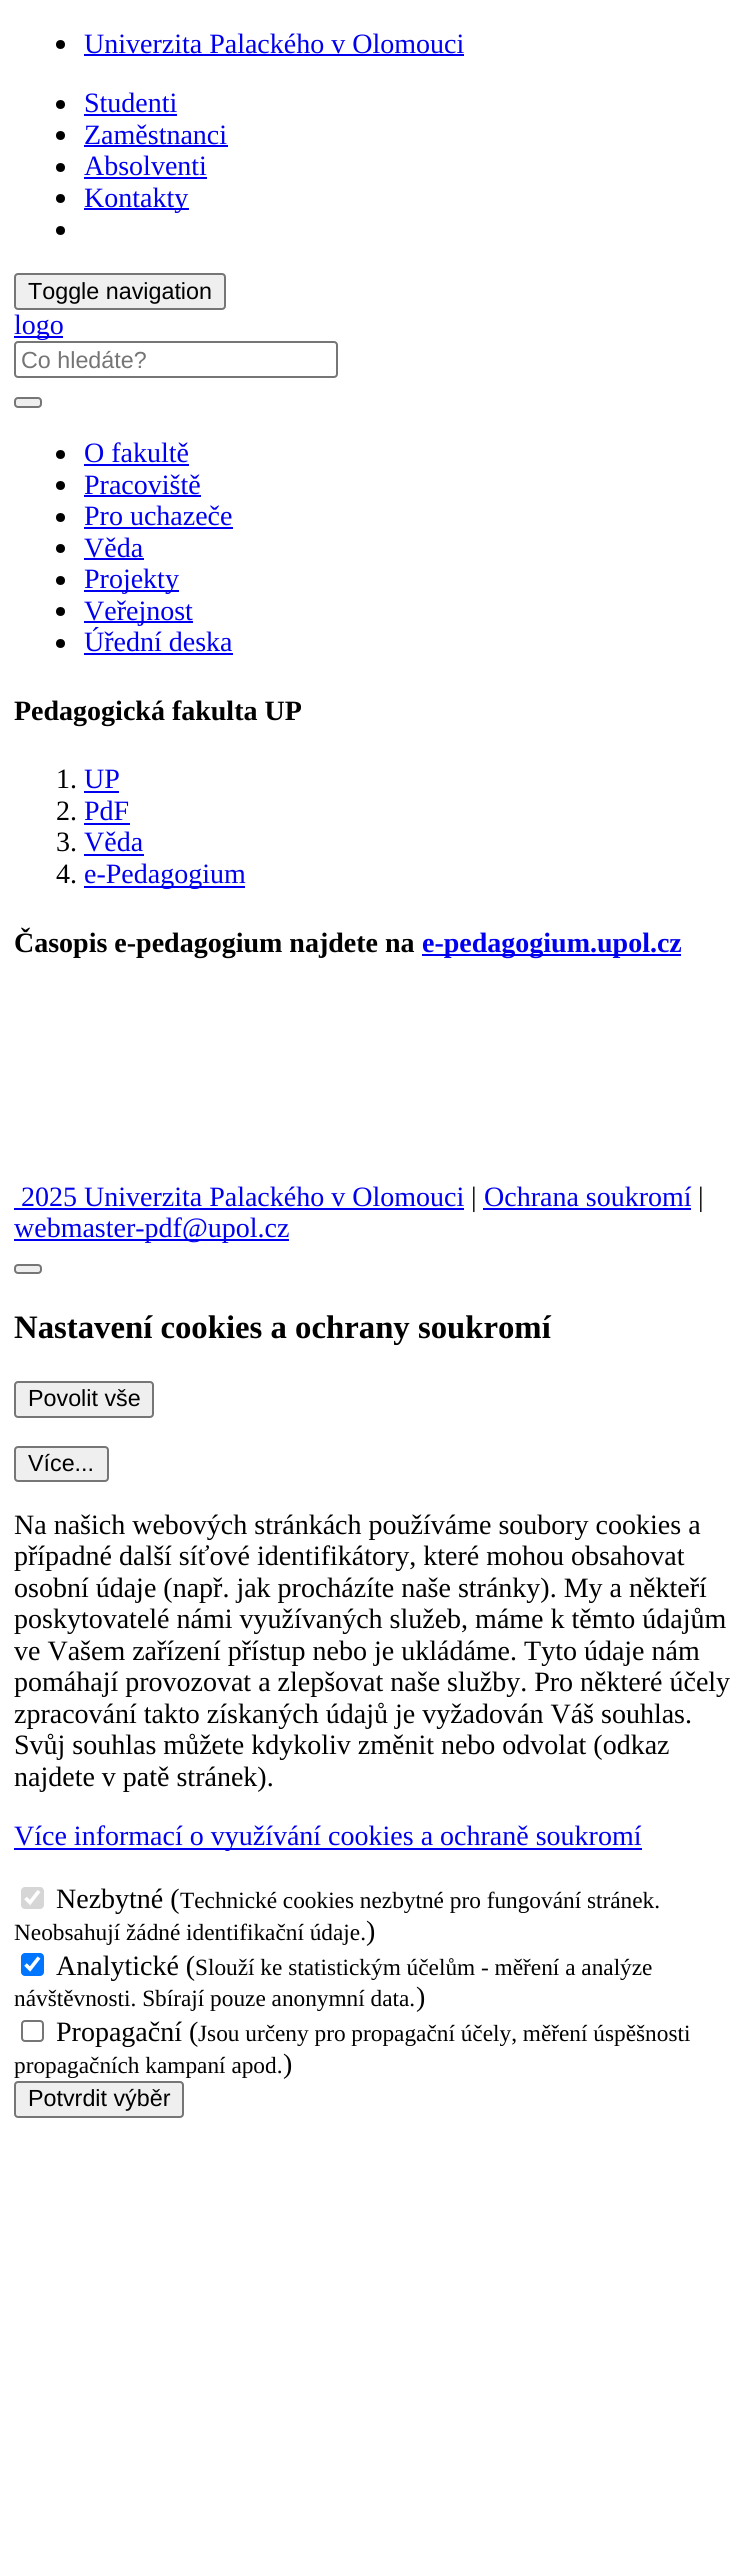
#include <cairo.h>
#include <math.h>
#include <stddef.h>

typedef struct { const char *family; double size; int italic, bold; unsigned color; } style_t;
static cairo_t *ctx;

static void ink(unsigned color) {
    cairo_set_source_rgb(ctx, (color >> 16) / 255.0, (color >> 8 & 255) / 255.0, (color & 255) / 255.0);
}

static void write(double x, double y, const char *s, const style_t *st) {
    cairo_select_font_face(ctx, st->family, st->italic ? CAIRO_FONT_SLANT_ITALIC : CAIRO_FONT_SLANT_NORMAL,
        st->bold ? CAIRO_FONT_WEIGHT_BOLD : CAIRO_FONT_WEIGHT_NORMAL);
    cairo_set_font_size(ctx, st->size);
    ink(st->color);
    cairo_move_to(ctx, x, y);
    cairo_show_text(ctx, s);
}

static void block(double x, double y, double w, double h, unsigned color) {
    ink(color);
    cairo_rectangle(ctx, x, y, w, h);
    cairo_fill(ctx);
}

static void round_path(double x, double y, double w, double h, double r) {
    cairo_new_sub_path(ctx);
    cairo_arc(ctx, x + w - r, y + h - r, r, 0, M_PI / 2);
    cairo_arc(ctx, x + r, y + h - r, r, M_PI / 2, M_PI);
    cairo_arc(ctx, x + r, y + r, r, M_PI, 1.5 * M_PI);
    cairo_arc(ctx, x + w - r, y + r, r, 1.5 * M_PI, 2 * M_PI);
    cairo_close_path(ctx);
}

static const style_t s1 = {"Liberation Serif", 28, 0, 0, 0x0000ee};
static const style_t s2 = {"Liberation Sans", 23.3, 0, 0, 0x000000};
static const style_t s3 = {"Liberation Sans", 23.3, 0, 0, 0x757575};
static const style_t s4 = {"Liberation Serif", 28, 0, 1, 0x000000};
static const style_t s5 = {"Liberation Serif", 28, 0, 0, 0x000000};
static const style_t s6 = {"Liberation Serif", 28, 0, 1, 0x0000ee};
static const style_t s7 = {"Liberation Serif", 32.75, 0, 1, 0x000000};
static const style_t s8 = {"Liberation Serif", 23.3, 0, 0, 0x000000};

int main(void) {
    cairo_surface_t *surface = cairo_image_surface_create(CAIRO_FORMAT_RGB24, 744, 2549);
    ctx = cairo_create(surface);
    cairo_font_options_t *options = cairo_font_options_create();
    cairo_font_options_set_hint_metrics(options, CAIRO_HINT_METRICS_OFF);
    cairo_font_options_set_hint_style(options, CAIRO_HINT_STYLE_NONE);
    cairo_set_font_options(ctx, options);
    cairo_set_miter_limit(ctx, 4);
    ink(0xffffff);
    cairo_paint(ctx);
    ink(0x000000);
    cairo_arc(ctx, 60.5, 44.5, 4.5, 0, 2 * M_PI);
    cairo_fill(ctx);
    write(84, 53, "Univerzita Palackého v Olomouci", &s1);
    block(84, 54, 380, 2, 0x0000ee);
    ink(0x000000);
    cairo_new_path(ctx);
    cairo_arc(ctx, 60.5, 104.5, 4.5, 0, 2 * M_PI);
    cairo_fill(ctx);
    write(84, 112, "Studenti", &s1);
    block(84, 114, 93, 2, 0x0000ee);
    ink(0x000000);
    cairo_new_path(ctx);
    cairo_arc(ctx, 60.5, 135.5, 4.5, 0, 2 * M_PI);
    cairo_fill(ctx);
    write(84, 144, "Zaměstnanci", &s1);
    block(84, 145, 144, 2, 0x0000ee);
    ink(0x000000);
    cairo_new_path(ctx);
    cairo_arc(ctx, 60.5, 167.5, 4.5, 0, 2 * M_PI);
    cairo_fill(ctx);
    write(84, 175, "Absolventi", &s1);
    block(84, 177, 123, 2, 0x0000ee);
    ink(0x000000);
    cairo_new_path(ctx);
    cairo_arc(ctx, 60.5, 198.5, 4.5, 0, 2 * M_PI);
    cairo_fill(ctx);
    block(84, 208, 105, 2, 0x0000ee);
    write(84, 207, "Kontakty", &s1);
    ink(0x000000);
    cairo_new_path(ctx);
    cairo_arc(ctx, 60.5, 230.5, 4.5, 0, 2 * M_PI);
    cairo_fill(ctx);
    ink(0xefefef);
    round_path(15, 274, 210, 35, 3);
    cairo_fill_preserve(ctx);
    ink(0x767676);
    cairo_stroke(ctx);
    write(28, 299, "Toggle navigation", &s2);
    block(14, 336, 49, 2, 0x0000ee);
    write(14, 334, "logo", &s1);
    round_path(15, 342, 322, 35, 3);
    ink(0x767676);
    cairo_stroke(ctx);
    write(21, 368, "Co hledáte?", &s3);
    ink(0xefefef);
    round_path(15, 398, 26, 9, 3);
    cairo_fill_preserve(ctx);
    ink(0x767676);
    cairo_stroke(ctx);
    ink(0x000000);
    cairo_arc(ctx, 60.5, 454.5, 4.5, 0, 2 * M_PI);
    cairo_fill(ctx);
    write(84, 462, "O fakultě", &s1);
    block(84, 464, 105, 2, 0x0000ee);
    ink(0x000000);
    cairo_new_path(ctx);
    cairo_arc(ctx, 60.5, 485.5, 4.5, 0, 2 * M_PI);
    cairo_fill(ctx);
    write(84, 494, "Pracoviště", &s1);
    block(84, 495, 117, 2, 0x0000ee);
    ink(0x000000);
    cairo_new_path(ctx);
    cairo_arc(ctx, 60.5, 517.5, 4.5, 0, 2 * M_PI);
    cairo_fill(ctx);
    write(84, 525, "Pro uchazeče", &s1);
    block(84, 527, 149, 2, 0x0000ee);
    ink(0x000000);
    cairo_new_path(ctx);
    cairo_arc(ctx, 60.5, 548.5, 4.5, 0, 2 * M_PI);
    cairo_fill(ctx);
    write(84, 557, "Věda", &s1);
    block(84, 558, 60, 2, 0x0000ee);
    ink(0x000000);
    cairo_new_path(ctx);
    cairo_arc(ctx, 60.5, 580.5, 4.5, 0, 2 * M_PI);
    cairo_fill(ctx);
    block(84, 590, 95, 2, 0x0000ee);
    write(84, 588, "Projekty", &s1);
    ink(0x000000);
    cairo_new_path(ctx);
    cairo_arc(ctx, 60.5, 611.5, 4.5, 0, 2 * M_PI);
    cairo_fill(ctx);
    block(84, 621, 109, 2, 0x0000ee);
    write(84, 620, "Veřejnost", &s1);
    ink(0x000000);
    cairo_new_path(ctx);
    cairo_arc(ctx, 60.5, 643.5, 4.5, 0, 2 * M_PI);
    cairo_fill(ctx);
    write(84, 651, "Úřední deska", &s1);
    block(84, 653, 149, 2, 0x0000ee);
    write(14, 720, "Pedagogická fakulta UP", &s4);
    write(56, 788, "1.", &s5);
    write(84, 788, "UP", &s1);
    block(84, 791, 35, 2, 0x0000ee);
    write(56, 820, "2.", &s5);
    write(84, 820, "PdF", &s1);
    block(84, 823, 46, 2, 0x0000ee);
    write(56, 851, "3.", &s5);
    write(84, 851, "Věda", &s1);
    block(84, 854, 60, 2, 0x0000ee);
    write(56, 883, "4.", &s5);
    block(84, 886, 161, 2, 0x0000ee);
    write(84, 883, "e-Pedagogium", &s1);
    write(14, 952, "Časopis e-pedagogium najdete na", &s4);
    block(422, 954, 259, 2, 0x0000ee);
    write(422, 952, "e-pedagogium.upol.cz", &s6);
    write(21, 1206, "2025 Univerzita Palackého v Olomouci", &s1);
    block(14, 1208, 450, 2, 0x0000ee);
    write(471, 1206, "|", &s5);
    write(484, 1206, "Ochrana soukromí", &s1);
    block(483, 1208, 208, 2, 0x0000ee);
    write(698, 1206, "|", &s5);
    block(14, 1239, 275, 2, 0x0000ee);
    write(14, 1237, "webmaster-pdf@upol.cz", &s1);
    ink(0xefefef);
    round_path(15, 1265, 26, 8, 3);
    cairo_fill_preserve(ctx);
    ink(0x767676);
    cairo_stroke(ctx);
    write(14, 1338, "Nastavení cookies a ochrany soukromí", &s7);
    ink(0xefefef);
    round_path(15, 1382, 138, 35, 3);
    cairo_fill_preserve(ctx);
    ink(0x767676);
    cairo_stroke(ctx);
    write(28, 1406, "Povolit vše", &s2);
    ink(0xefefef);
    round_path(15, 1447, 93, 34, 3);
    cairo_fill_preserve(ctx);
    ink(0x767676);
    cairo_stroke(ctx);
    write(28, 1471, "Více...", &s2);
    write(14, 1534, "Na našich webových stránkách používáme soubory cookies a", &s5);
    write(14, 1565, "případné další síťové identifikátory, které mohou obsahovat", &s5);
    write(14, 1597, "osobní údaje (např. jak procházíte naše stránky). My a někteří", &s5);
    write(14, 1628, "poskytovatelé námi využívaných služeb, máme k těmto údajům", &s5);
    write(14, 1660, "ve Vašem zařízení přístup nebo je ukládáme. Tyto údaje nám", &s5);
    write(14, 1691, "pomáhají provozovat a zlepšovat naše služby. Pro některé účely", &s5);
    write(14, 1723, "zpracování takto získaných údajů je vyžadován Váš souhlas.", &s5);
    write(14, 1754, "Svůj souhlas můžete kdykoliv změnit nebo odvolat (odkaz", &s5);
    write(14, 1786, "najdete v patě stránek).", &s5);
    block(14, 1848, 628, 2, 0x0000ee);
    write(14, 1845, "Více informací o využívání cookies a ochraně soukromí", &s1);
    ink(0xd6d6d6);
    round_path(21, 1887, 23, 22, 4);
    cairo_fill(ctx);
    cairo_new_path(ctx);
    cairo_move_to(ctx, 25.5, 1898);
    cairo_line_to(ctx, 30, 1902.5);
    cairo_line_to(ctx, 39, 1891);
    ink(0xffffff);
    cairo_set_line_width(ctx, 3.6);
    cairo_stroke(ctx);
    write(56, 1908, "Nezbytné (", &s5);
    write(180, 1908, "Technické cookies nezbytné pro fungování stránek.", &s8);
    write(14, 1940, "Neobsahují žádné identifikační údaje.", &s8);
    write(366, 1940, ")", &s5);
    ink(0x0075ff);
    round_path(21, 1953, 23, 23, 4);
    cairo_fill(ctx);
    cairo_new_path(ctx);
    cairo_move_to(ctx, 25.5, 1964.5);
    cairo_line_to(ctx, 30, 1969);
    cairo_line_to(ctx, 39, 1957.5);
    ink(0xffffff);
    cairo_stroke(ctx);
    write(56, 1975, "Analytické (", &s5);
    write(195, 1975, "Slouží ke statistickým účelům - měření a analýze", &s8);
    write(14, 2006, "návštěvnosti. Sbírají pouze anonymní data.", &s8);
    write(416, 2006, ")", &s5);
    round_path(22, 2021, 21, 20, 3);
    ink(0x767676);
    cairo_set_line_width(ctx, 2);
    cairo_stroke(ctx);
    write(56, 2041, "Propagační (", &s5);
    write(198, 2041, "Jsou určeny pro propagační účely, měření úspěšnosti", &s8);
    write(14, 2073, "propagačních kampaní apod.", &s8);
    write(283, 2073, ")", &s5);
    ink(0xefefef);
    round_path(15, 2082, 168, 35, 3);
    cairo_fill_preserve(ctx);
    ink(0x767676);
    cairo_stroke(ctx);
    write(28, 2106, "Potvrdit výběr", &s2);
    cairo_surface_write_to_png(surface, "screenshot.png");
    cairo_font_options_destroy(options);
    cairo_destroy(ctx);
    cairo_surface_destroy(surface);
    return 0;
}
